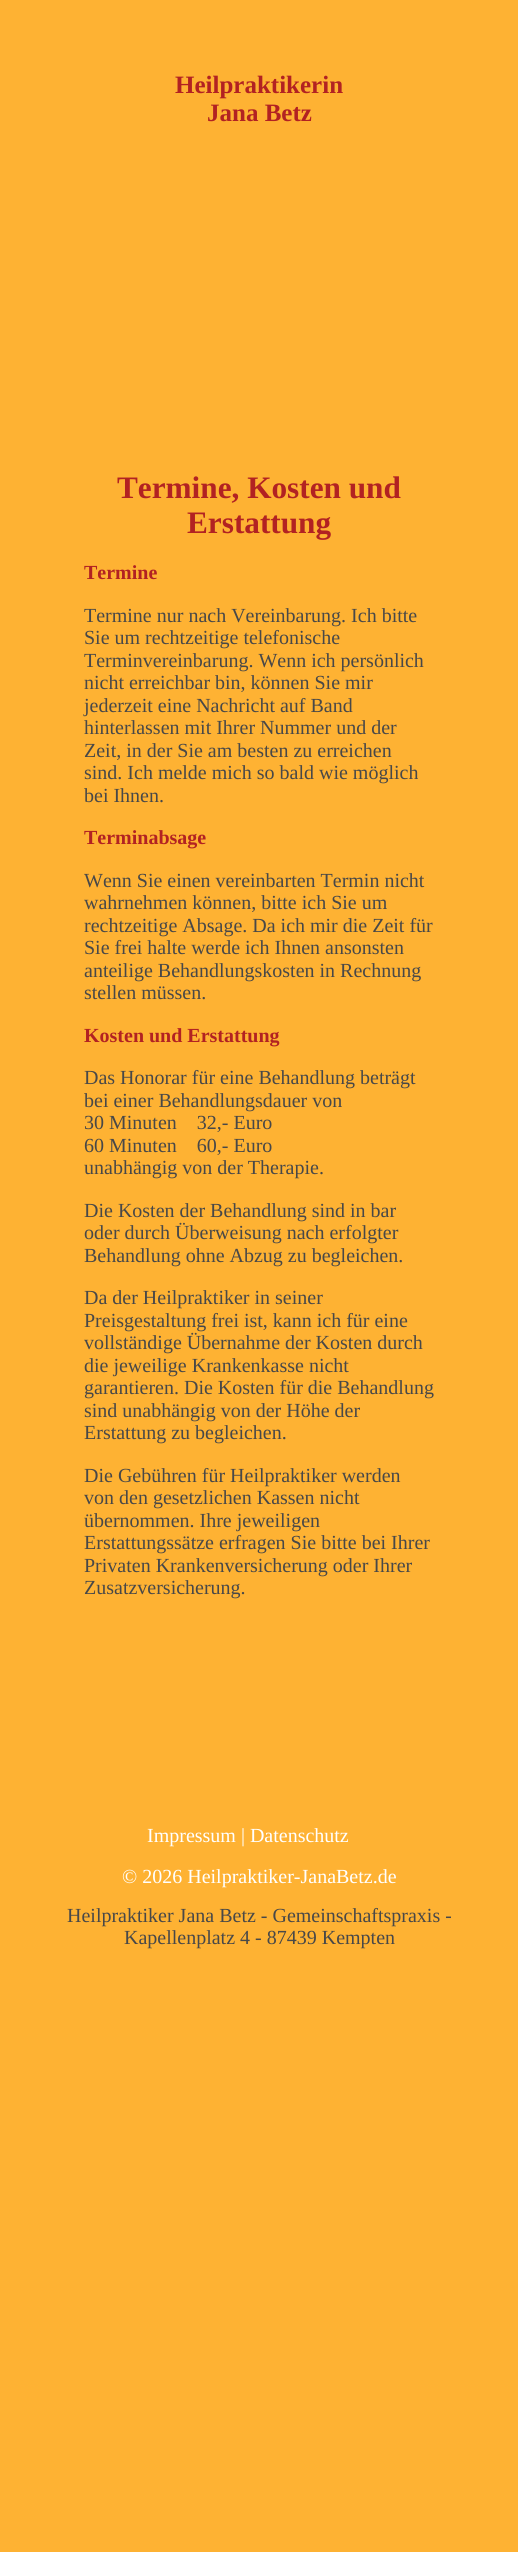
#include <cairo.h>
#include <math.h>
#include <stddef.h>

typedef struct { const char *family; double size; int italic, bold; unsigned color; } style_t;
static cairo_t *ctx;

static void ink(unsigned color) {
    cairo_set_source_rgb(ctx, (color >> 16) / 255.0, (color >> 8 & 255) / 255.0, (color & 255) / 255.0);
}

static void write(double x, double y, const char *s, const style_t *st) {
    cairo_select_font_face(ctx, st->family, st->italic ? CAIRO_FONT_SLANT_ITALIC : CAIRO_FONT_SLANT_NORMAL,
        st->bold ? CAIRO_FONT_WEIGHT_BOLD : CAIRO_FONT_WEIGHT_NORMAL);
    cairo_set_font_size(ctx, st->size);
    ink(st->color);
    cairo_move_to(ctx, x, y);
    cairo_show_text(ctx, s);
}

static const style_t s1 = {"Liberation Serif", 25, 0, 1, 0xb22222};
static const style_t s2 = {"Liberation Serif", 31.25, 0, 1, 0xb22222};
static const style_t s3 = {"Liberation Serif", 20, 0, 1, 0xb22222};
static const style_t s4 = {"Liberation Serif", 20, 0, 0, 0x484848};
static const style_t s5 = {"Liberation Serif", 20, 0, 0, 0xffffff};

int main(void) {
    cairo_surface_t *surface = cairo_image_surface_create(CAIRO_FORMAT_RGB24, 518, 2552);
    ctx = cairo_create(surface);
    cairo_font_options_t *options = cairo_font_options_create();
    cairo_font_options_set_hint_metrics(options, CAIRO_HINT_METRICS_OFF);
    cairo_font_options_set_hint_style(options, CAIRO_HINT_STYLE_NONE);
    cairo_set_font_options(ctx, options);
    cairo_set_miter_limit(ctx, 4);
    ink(0xfeb233);
    cairo_paint(ctx);
    write(175, 93, "Heilpraktikerin", &s1);
    write(207, 121, "Jana Betz", &s1);
    write(117, 498, "Termine, Kosten und", &s2);
    write(187, 533, "Erstattung", &s2);
    write(84, 579, "Termine", &s3);
    write(84, 622, "Termine nur nach Vereinbarung. Ich bitte", &s4);
    write(84, 644, "Sie um rechtzeitige telefonische", &s4);
    write(84, 667, "Terminvereinbarung. Wenn ich persönlich", &s4);
    write(84, 689, "nicht erreichbar bin, können Sie mir", &s4);
    write(84, 712, "jederzeit eine Nachricht auf Band", &s4);
    write(84, 734, "hinterlassen mit Ihrer Nummer und der", &s4);
    write(84, 757, "Zeit, in der Sie am besten zu erreichen", &s4);
    write(84, 779, "sind. Ich melde mich so bald wie möglich", &s4);
    write(84, 802, "bei Ihnen.", &s4);
    write(84, 844, "Terminabsage", &s3);
    write(84, 887, "Wenn Sie einen vereinbarten Termin nicht", &s4);
    write(84, 909, "wahrnehmen können, bitte ich Sie um", &s4);
    write(84, 932, "rechtzeitige Absage. Da ich mir die Zeit für", &s4);
    write(84, 954, "Sie frei halte werde ich Ihnen ansonsten", &s4);
    write(84, 977, "anteilige Behandlungskosten in Rechnung", &s4);
    write(84, 999, "stellen müssen.", &s4);
    write(84, 1042, "Kosten und Erstattung", &s3);
    write(84, 1084, "Das Honorar für eine Behandlung beträgt", &s4);
    write(84, 1107, "bei einer Behandlungsdauer von", &s4);
    write(84, 1129, "30 Minuten    32,- Euro", &s4);
    write(84, 1152, "60 Minuten    60,- Euro", &s4);
    write(84, 1174, "unabhängig von der Therapie.", &s4);
    write(84, 1217, "Die Kosten der Behandlung sind in bar", &s4);
    write(84, 1239, "oder durch Überweisung nach erfolgter", &s4);
    write(84, 1262, "Behandlung ohne Abzug zu begleichen.", &s4);
    write(84, 1304, "Da der Heilpraktiker in seiner", &s4);
    write(84, 1327, "Preisgestaltung frei ist, kann ich für eine", &s4);
    write(84, 1349, "vollständige Übernahme der Kosten durch", &s4);
    write(84, 1372, "die jeweilige Krankenkasse nicht", &s4);
    write(84, 1394, "garantieren. Die Kosten für die Behandlung", &s4);
    write(84, 1417, "sind unabhängig von der Höhe der", &s4);
    write(84, 1439, "Erstattung zu begleichen.", &s4);
    write(84, 1482, "Die Gebühren für Heilpraktiker werden", &s4);
    write(84, 1504, "von den gesetzlichen Kassen nicht", &s4);
    write(84, 1527, "übernommen. Ihre jeweiligen", &s4);
    write(84, 1549, "Erstattungssätze erfragen Sie bitte bei Ihrer", &s4);
    write(84, 1572, "Privaten Krankenversicherung oder Ihrer", &s4);
    write(84, 1594, "Zusatzversicherung.", &s4);
    write(147, 1842, "Impressum | Datenschutz", &s5);
    write(122, 1883, "© 2026 Heilpraktiker-JanaBetz.de", &s5);
    write(67, 1922, "Heilpraktiker Jana Betz - Gemeinschaftspraxis -", &s4);
    write(124, 1944, "Kapellenplatz 4 - 87439 Kempten", &s4);
    cairo_surface_write_to_png(surface, "screenshot.png");
    cairo_font_options_destroy(options);
    cairo_destroy(ctx);
    cairo_surface_destroy(surface);
    return 0;
}
